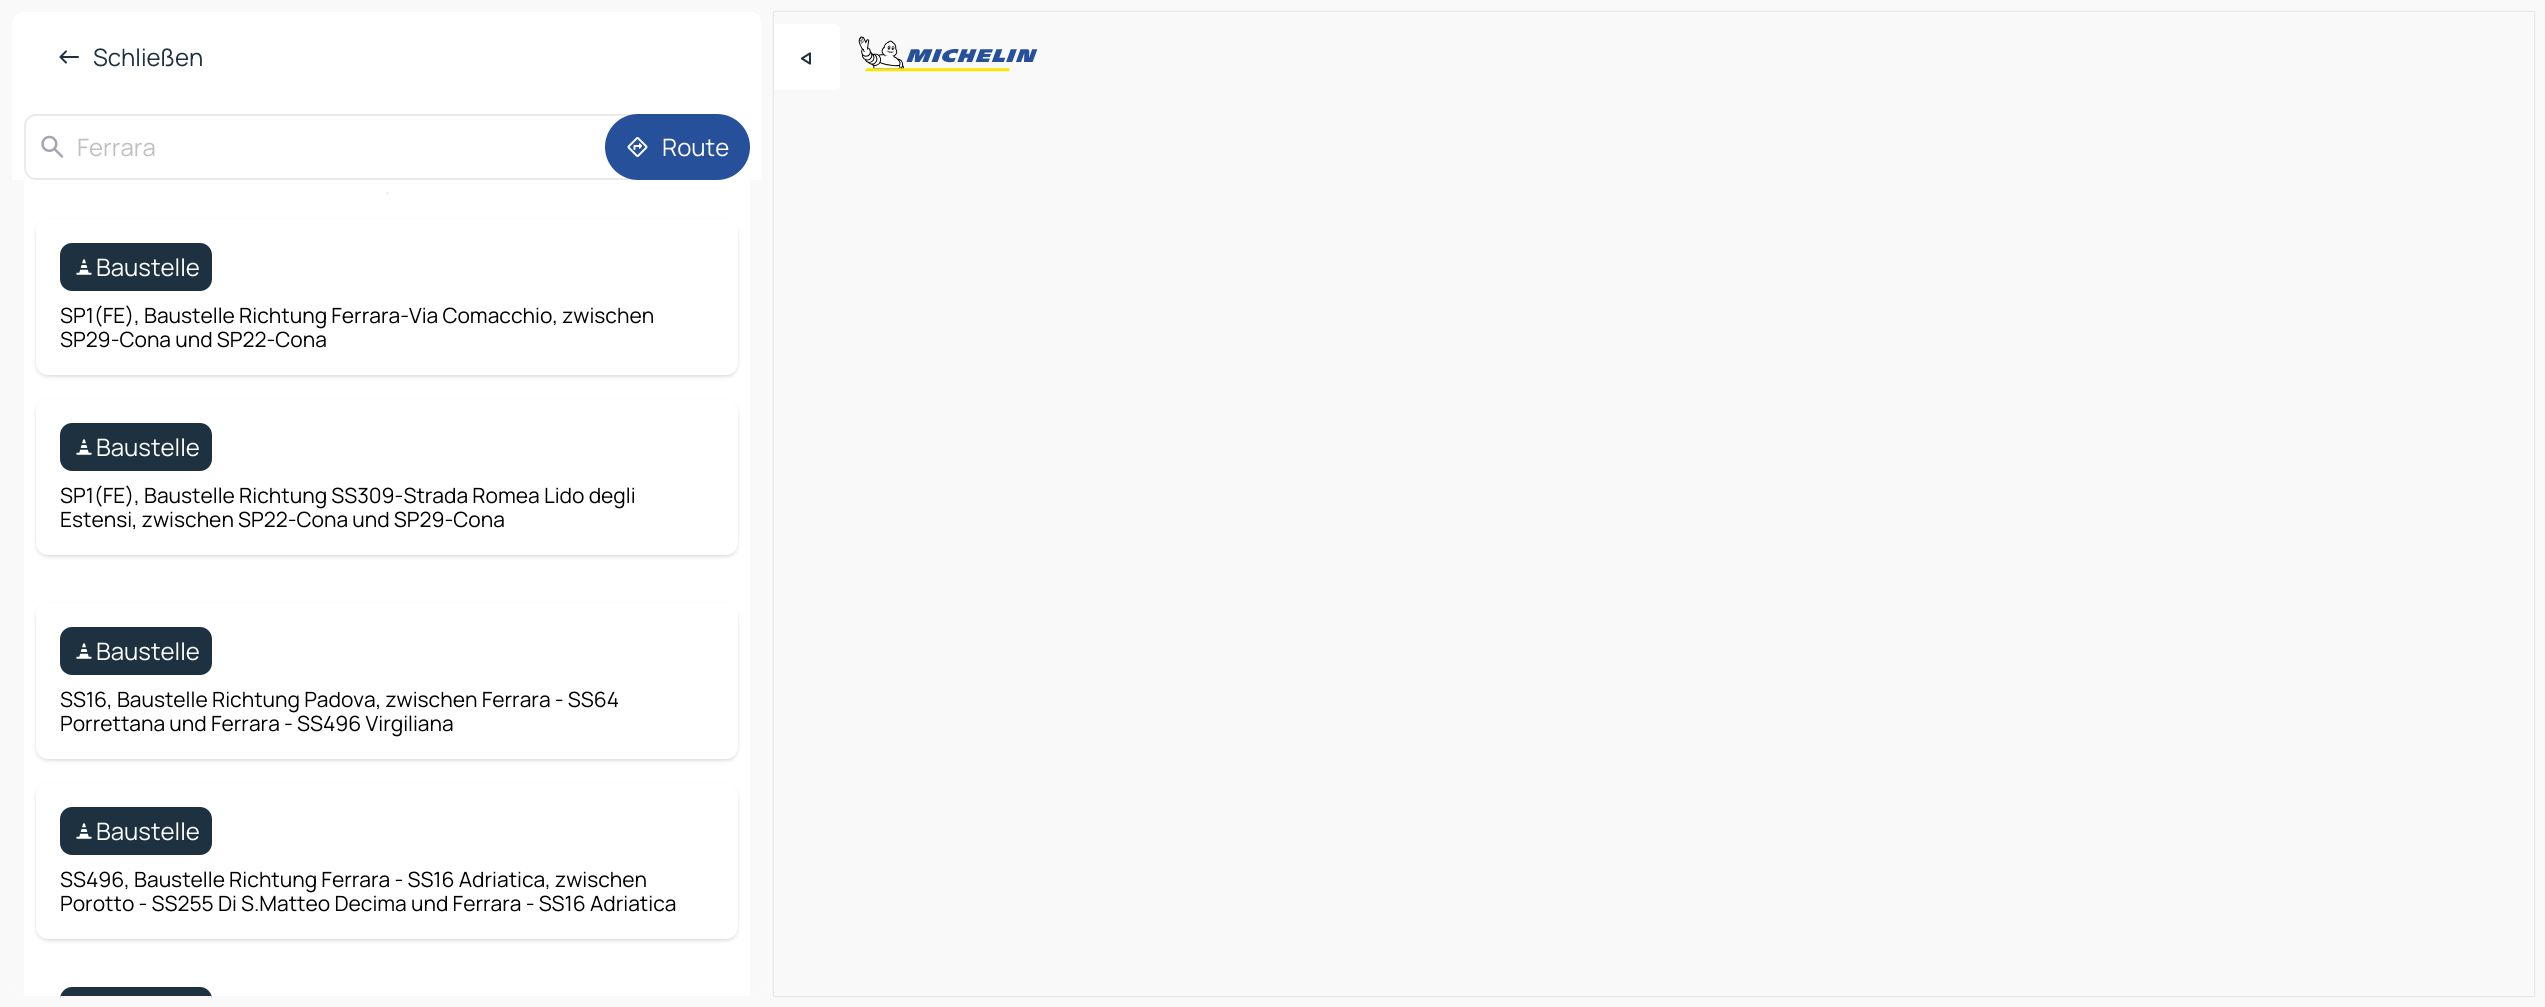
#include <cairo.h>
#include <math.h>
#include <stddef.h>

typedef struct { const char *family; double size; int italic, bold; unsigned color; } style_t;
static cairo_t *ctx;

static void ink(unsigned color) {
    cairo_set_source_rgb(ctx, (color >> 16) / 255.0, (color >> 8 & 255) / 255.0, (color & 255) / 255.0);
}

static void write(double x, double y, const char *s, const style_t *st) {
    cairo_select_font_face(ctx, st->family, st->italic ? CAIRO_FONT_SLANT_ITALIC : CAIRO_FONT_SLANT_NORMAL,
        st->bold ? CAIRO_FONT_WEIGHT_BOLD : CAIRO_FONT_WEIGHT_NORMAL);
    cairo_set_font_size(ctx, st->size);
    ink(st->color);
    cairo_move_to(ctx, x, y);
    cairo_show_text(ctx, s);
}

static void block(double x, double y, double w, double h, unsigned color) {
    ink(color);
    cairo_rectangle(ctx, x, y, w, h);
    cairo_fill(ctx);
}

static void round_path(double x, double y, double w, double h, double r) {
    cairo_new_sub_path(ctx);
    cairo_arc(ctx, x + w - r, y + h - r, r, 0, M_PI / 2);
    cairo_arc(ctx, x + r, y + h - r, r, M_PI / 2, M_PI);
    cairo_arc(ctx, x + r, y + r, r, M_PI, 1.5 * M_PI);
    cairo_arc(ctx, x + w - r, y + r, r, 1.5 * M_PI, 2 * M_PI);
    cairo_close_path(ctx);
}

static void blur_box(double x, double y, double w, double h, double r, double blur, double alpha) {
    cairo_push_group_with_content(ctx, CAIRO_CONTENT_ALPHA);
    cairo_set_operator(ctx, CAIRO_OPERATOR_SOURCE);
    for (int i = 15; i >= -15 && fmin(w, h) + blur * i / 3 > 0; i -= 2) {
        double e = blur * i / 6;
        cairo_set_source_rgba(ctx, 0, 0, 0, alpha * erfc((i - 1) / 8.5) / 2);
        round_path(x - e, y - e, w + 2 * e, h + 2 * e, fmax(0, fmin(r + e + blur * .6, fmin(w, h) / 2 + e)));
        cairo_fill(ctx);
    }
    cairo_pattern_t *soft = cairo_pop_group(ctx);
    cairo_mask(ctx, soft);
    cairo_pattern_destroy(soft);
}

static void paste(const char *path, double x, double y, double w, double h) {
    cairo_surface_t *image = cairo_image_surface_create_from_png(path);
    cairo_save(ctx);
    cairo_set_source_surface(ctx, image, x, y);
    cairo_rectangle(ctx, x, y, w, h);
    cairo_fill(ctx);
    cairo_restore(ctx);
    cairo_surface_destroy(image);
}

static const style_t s1 = {"Manrope ExtraLight", 24, 0, 0, 0x1d3140};
static const style_t s2 = {"Manrope ExtraLight", 24, 0, 0, 0xc0c0c0};
static const style_t s3 = {"Manrope ExtraLight", 24, 0, 0, 0xffffff};
static const style_t s4 = {"Manrope ExtraLight", 21, 0, 0, 0x000000};

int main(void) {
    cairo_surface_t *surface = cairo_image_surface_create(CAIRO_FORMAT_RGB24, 2545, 1007);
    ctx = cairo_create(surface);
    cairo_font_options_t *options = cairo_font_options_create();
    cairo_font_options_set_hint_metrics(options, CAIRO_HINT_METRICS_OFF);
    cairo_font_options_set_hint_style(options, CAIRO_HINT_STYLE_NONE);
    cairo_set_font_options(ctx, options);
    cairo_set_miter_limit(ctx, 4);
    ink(0xf9f9f9);
    cairo_paint(ctx);
    ink(0xffffff);
    round_path(12, 12, 750, 984, 12);
    cairo_fill(ctx);
    paste("pic1.png", 59, 50, 20, 14);
    write(93, 66, "Schließen", &s1);
    round_path(25, 115, 615, 64, 11);
    ink(0xe8eaec);
    cairo_stroke(ctx);
    paste("pic2.png", 41, 135, 23, 23);
    write(77, 156, "Ferrara", &s2);
    ink(0x27509b);
    round_path(605, 114, 145, 66, 33);
    cairo_fill(ctx);
    paste("pic3.png", 627, 137, 21, 20);
    write(662, 156, "Route", &s3);
    ink(0xf9f9f9);
    cairo_new_path(ctx);
    cairo_move_to(ctx, 12, 180);
    cairo_line_to(ctx, 762, 180);
    cairo_line_to(ctx, 762, 984);
    cairo_curve_to(ctx, 762, 990.5, 756.5, 996, 750, 996);
    cairo_line_to(ctx, 24, 996);
    cairo_curve_to(ctx, 17.5, 996, 12, 990.5, 12, 984);
    cairo_close_path(ctx);
    cairo_fill(ctx);
    block(24, 180, 726, 816, 0xffffff);
    block(386, 192, 3, 3, 0xf2f2f2);
    ink(0x1d3140);
    blur_box(36, 221, 702, 156, 12, 2, 0.1);
    blur_box(36, 221, 702, 156, 12, 1.5, 0.06);
    ink(0xffffff);
    round_path(36, 219, 702, 156, 12);
    cairo_fill(ctx);
    ink(0x1d3140);
    round_path(60, 243, 152, 48, 12);
    cairo_fill(ctx);
    paste("pic4.png", 76, 259, 16, 16);
    write(96, 276, "Baustelle", &s3);
    write(60, 323, "SP1(FE), Baustelle Richtung Ferrara-Via Comacchio, zwischen", &s4);
    write(60, 347, "SP29-Cona und SP22-Cona", &s4);
    ink(0x1d3140);
    blur_box(36, 401, 702, 156, 12, 2, 0.1);
    blur_box(36, 401, 702, 156, 12, 1.5, 0.06);
    ink(0xffffff);
    round_path(36, 399, 702, 156, 12);
    cairo_fill(ctx);
    ink(0x1d3140);
    round_path(60, 423, 152, 48, 12);
    cairo_fill(ctx);
    paste("pic4.png", 76, 439, 16, 16);
    write(96, 456, "Baustelle", &s3);
    write(60, 503, "SP1(FE), Baustelle Richtung SS309-Strada Romea Lido degli", &s4);
    write(60, 527, "Estensi, zwischen SP22-Cona und SP29-Cona", &s4);
    ink(0x1d3140);
    blur_box(36, 605, 702, 156, 12, 2, 0.1);
    blur_box(36, 605, 702, 156, 12, 1.5, 0.06);
    ink(0xffffff);
    round_path(36, 603, 702, 156, 12);
    cairo_fill(ctx);
    ink(0x1d3140);
    round_path(60, 627, 152, 48, 12);
    cairo_fill(ctx);
    paste("pic4.png", 76, 643, 16, 16);
    write(96, 660, "Baustelle", &s3);
    write(60, 707, "SS16, Baustelle Richtung Padova, zwischen Ferrara - SS64", &s4);
    write(60, 731, "Porrettana und Ferrara - SS496 Virgiliana", &s4);
    ink(0x1d3140);
    blur_box(36, 785, 702, 156, 12, 2, 0.1);
    blur_box(36, 785, 702, 156, 12, 1.5, 0.06);
    ink(0xffffff);
    round_path(36, 783, 702, 156, 12);
    cairo_fill(ctx);
    ink(0x1d3140);
    round_path(60, 807, 152, 48, 12);
    cairo_fill(ctx);
    paste("pic4.png", 76, 823, 16, 16);
    write(96, 840, "Baustelle", &s3);
    write(60, 887, "SS496, Baustelle Richtung Ferrara - SS16 Adriatica, zwischen", &s4);
    write(60, 911, "Porotto - SS255 Di S.Matteo Decima und Ferrara - SS16 Adriatica", &s4);
    ink(0x1d3140);
    cairo_new_path(ctx);
    cairo_move_to(ctx, 72, 987);
    cairo_line_to(ctx, 200, 987);
    cairo_curve_to(ctx, 206.5, 987, 212, 992.5, 212, 999);
    cairo_line_to(ctx, 212, 996);
    cairo_line_to(ctx, 60, 996);
    cairo_line_to(ctx, 60, 999);
    cairo_curve_to(ctx, 60, 992.5, 65.5, 987, 72, 987);
    cairo_close_path(ctx);
    cairo_fill(ctx);
    cairo_save(ctx);
    cairo_set_fill_rule(ctx, CAIRO_FILL_RULE_EVEN_ODD);
    cairo_new_path(ctx);
    cairo_move_to(ctx, 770, 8);
    cairo_line_to(ctx, 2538, 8);
    cairo_line_to(ctx, 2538, 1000);
    cairo_line_to(ctx, 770, 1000);
    cairo_close_path(ctx);
    cairo_move_to(ctx, 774, 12);
    cairo_line_to(ctx, 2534, 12);
    cairo_line_to(ctx, 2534, 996);
    cairo_line_to(ctx, 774, 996);
    cairo_close_path(ctx);
    cairo_clip(ctx);
    ink(0x0c1a4b);
    blur_box(774, 12, 1760, 984, 0, 1, 0.24);
    cairo_restore(ctx);
    ink(0xffffff);
    cairo_new_path(ctx);
    cairo_move_to(ctx, 774, 24);
    cairo_line_to(ctx, 834, 24);
    cairo_curve_to(ctx, 837.5, 24, 840, 26.5, 840, 30);
    cairo_line_to(ctx, 840, 84);
    cairo_curve_to(ctx, 840, 87.5, 837.5, 90, 834, 90);
    cairo_line_to(ctx, 774, 90);
    cairo_close_path(ctx);
    cairo_fill(ctx);
    paste("pic5.png", 800, 52, 11, 13);
    paste("pic6.png", 858, 36, 180, 36);
    cairo_surface_write_to_png(surface, "screenshot.png");
    cairo_font_options_destroy(options);
    cairo_destroy(ctx);
    cairo_surface_destroy(surface);
    return 0;
}
